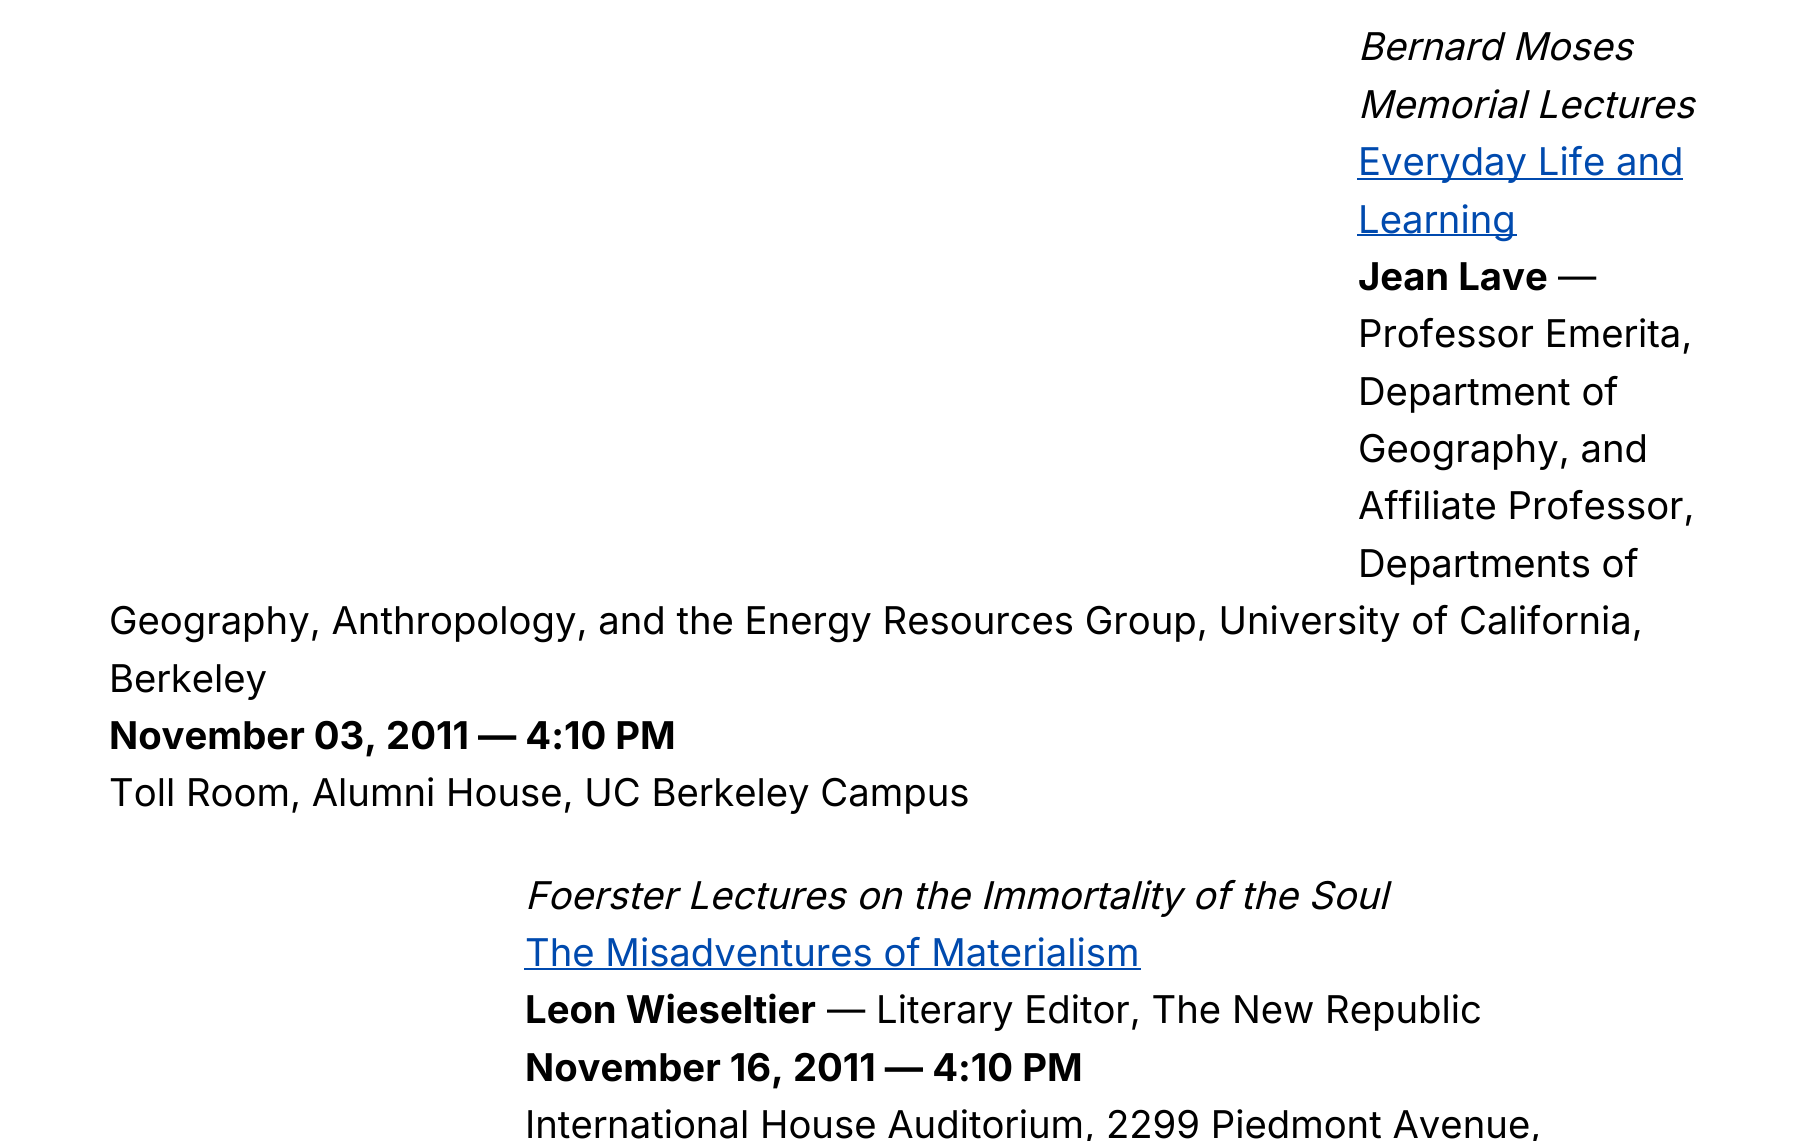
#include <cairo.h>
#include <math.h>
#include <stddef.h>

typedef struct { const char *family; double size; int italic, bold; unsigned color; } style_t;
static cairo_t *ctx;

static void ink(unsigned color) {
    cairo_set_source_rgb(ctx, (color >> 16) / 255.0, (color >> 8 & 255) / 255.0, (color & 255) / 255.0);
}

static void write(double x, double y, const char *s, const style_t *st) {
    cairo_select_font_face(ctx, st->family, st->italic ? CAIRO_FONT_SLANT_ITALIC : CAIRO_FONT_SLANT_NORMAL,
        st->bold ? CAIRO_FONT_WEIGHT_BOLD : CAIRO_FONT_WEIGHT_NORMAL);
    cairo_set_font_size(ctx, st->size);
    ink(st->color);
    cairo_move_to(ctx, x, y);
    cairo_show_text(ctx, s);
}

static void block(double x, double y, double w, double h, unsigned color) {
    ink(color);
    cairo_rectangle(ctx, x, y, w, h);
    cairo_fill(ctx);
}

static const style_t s1 = {"Inter", 38.25, 1, 0, 0x000000};
static const style_t s2 = {"Inter", 38.25, 0, 0, 0x004aae};
static const style_t s3 = {"Inter", 38.25, 0, 1, 0x000000};
static const style_t s4 = {"Inter", 38.25, 0, 0, 0x000000};

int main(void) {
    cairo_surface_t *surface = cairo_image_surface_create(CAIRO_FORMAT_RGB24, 1815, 1141);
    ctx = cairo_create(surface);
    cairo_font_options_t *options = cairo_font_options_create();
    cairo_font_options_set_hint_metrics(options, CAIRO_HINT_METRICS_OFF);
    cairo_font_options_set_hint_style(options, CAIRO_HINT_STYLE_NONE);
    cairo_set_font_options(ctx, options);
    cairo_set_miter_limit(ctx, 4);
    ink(0xffffff);
    cairo_paint(ctx);
    write(1358, 60, "Bernard Moses", &s1);
    write(1358, 118, "Memorial Lectures", &s1);
    block(1357, 178, 326, 2, 0x004aae);
    write(1358, 175, "Everyday Life and", &s2);
    block(1357, 234, 160, 2, 0x004aae);
    write(1358, 233, "Learning", &s2);
    write(1358, 290, "Jean Lave", &s3);
    write(1558, 290, "—", &s4);
    write(1358, 347, "Professor Emerita,", &s4);
    write(1358, 405, "Department of", &s4);
    write(1358, 462, "Geography, and", &s4);
    write(1358, 519, "Affiliate Professor,", &s4);
    write(1358, 577, "Departments of", &s4);
    write(109, 634, "Geography, Anthropology, and the Energy Resources Group, University of California,", &s4);
    write(109, 692, "Berkeley", &s4);
    write(109, 749, "November 03, 2011 — 4:10 PM", &s3);
    write(109, 806, "Toll Room, Alumni House, UC Berkeley Campus", &s4);
    write(525, 909, "Foerster Lectures on the Immortality of the Soul", &s1);
    write(525, 966, "The Misadventures of Materialism", &s2);
    block(524, 968, 617, 2, 0x004aae);
    write(525, 1023, "Leon Wieseltier", &s3);
    write(827, 1023, "— Literary Editor, The New Republic", &s4);
    write(525, 1081, "November 16, 2011 — 4:10 PM", &s3);
    write(525, 1138, "International House Auditorium, 2299 Piedmont Avenue,", &s4);
    cairo_surface_write_to_png(surface, "screenshot.png");
    cairo_font_options_destroy(options);
    cairo_destroy(ctx);
    cairo_surface_destroy(surface);
    return 0;
}
